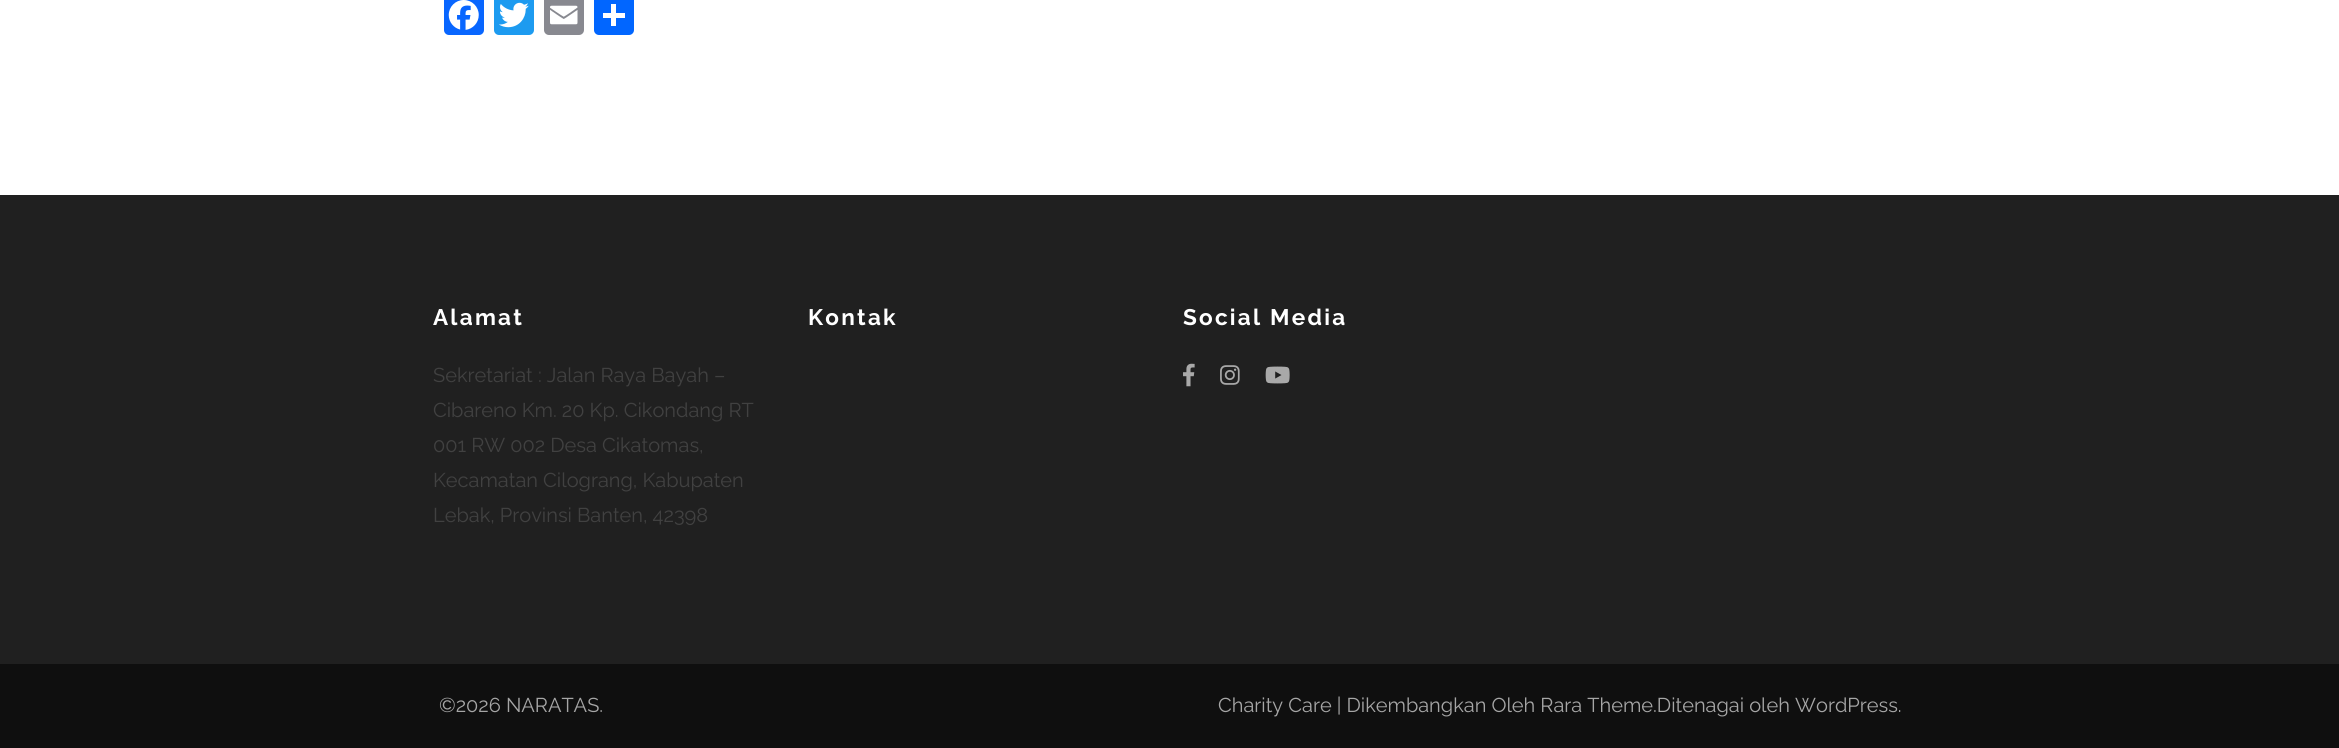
#include <cairo.h>
#include <math.h>
#include <stddef.h>

typedef struct { const char *family; double size; int italic, bold; unsigned color; } style_t;
static cairo_t *ctx;

static void ink(unsigned color) {
    cairo_set_source_rgb(ctx, (color >> 16) / 255.0, (color >> 8 & 255) / 255.0, (color & 255) / 255.0);
}

static void write(double x, double y, const char *s, const style_t *st) {
    cairo_select_font_face(ctx, st->family, st->italic ? CAIRO_FONT_SLANT_ITALIC : CAIRO_FONT_SLANT_NORMAL,
        st->bold ? CAIRO_FONT_WEIGHT_BOLD : CAIRO_FONT_WEIGHT_NORMAL);
    cairo_set_font_size(ctx, st->size);
    ink(st->color);
    cairo_move_to(ctx, x, y);
    cairo_show_text(ctx, s);
}

static void write_spaced(double x, double y, const char *s, double letter, double word) {
    cairo_move_to(ctx, x, y);
    while (*s) {
        char ch[5] = {0};
        int n = 0;
        do ch[n++] = *s++; while ((*s & 0xC0) == 0x80);
        cairo_show_text(ctx, ch);
        cairo_rel_move_to(ctx, letter + word * (*ch == ' '), 0);
    }
}

static void block(double x, double y, double w, double h, unsigned color) {
    ink(color);
    cairo_rectangle(ctx, x, y, w, h);
    cairo_fill(ctx);
}

static void round_path(double x, double y, double w, double h, double r) {
    cairo_new_sub_path(ctx);
    cairo_arc(ctx, x + w - r, y + h - r, r, 0, M_PI / 2);
    cairo_arc(ctx, x + r, y + h - r, r, M_PI / 2, M_PI);
    cairo_arc(ctx, x + r, y + r, r, M_PI, 1.5 * M_PI);
    cairo_arc(ctx, x + w - r, y + r, r, 1.5 * M_PI, 2 * M_PI);
    cairo_close_path(ctx);
}

static void paste(const char *path, double x, double y, double w, double h) {
    cairo_surface_t *image = cairo_image_surface_create_from_png(path);
    cairo_save(ctx);
    cairo_set_source_surface(ctx, image, x, y);
    cairo_rectangle(ctx, x, y, w, h);
    cairo_fill(ctx);
    cairo_restore(ctx);
    cairo_surface_destroy(image);
}

static const style_t s1 = {"Raleway", 20, 0, 0, 0x414141};
static const style_t s2 = {"Raleway", 20, 0, 0, 0xa6a6a6};

int main(void) {
    cairo_surface_t *surface = cairo_image_surface_create(CAIRO_FORMAT_RGB24, 2339, 748);
    ctx = cairo_create(surface);
    cairo_font_options_t *options = cairo_font_options_create();
    cairo_font_options_set_hint_metrics(options, CAIRO_HINT_METRICS_OFF);
    cairo_font_options_set_hint_style(options, CAIRO_HINT_STYLE_NONE);
    cairo_set_font_options(ctx, options);
    cairo_set_miter_limit(ctx, 4);
    ink(0xffffff);
    cairo_paint(ctx);
    ink(0x0866ff);
    round_path(444, -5, 40, 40, 5);
    cairo_fill(ctx);
    paste("pic1.png", 448, 0, 31, 30);
    ink(0x1d9bf0);
    round_path(494, -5, 40, 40, 5);
    cairo_fill(ctx);
    paste("pic2.png", 499, 2, 30, 26);
    ink(0x888990);
    round_path(544, -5, 40, 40, 5);
    cairo_fill(ctx);
    paste("pic3.png", 550, 5, 28, 20);
    ink(0x0166ff);
    round_path(594, -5, 40, 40, 5);
    cairo_fill(ctx);
    block(611, 4, 5, 22, 0xffffff);
    block(603, 13, 22, 5, 0xffffff);
    block(0, 195, 2339, 469, 0x202020);
    cairo_select_font_face(ctx, "Raleway", CAIRO_FONT_SLANT_NORMAL, CAIRO_FONT_WEIGHT_BOLD);
    cairo_set_font_size(ctx, 22.5);
    ink(0xffffff);
    write_spaced(433, 325, "Alamat", 2.25, 0);
    write(433, 382, "Sekretariat : Jalan Raya Bayah –", &s1);
    write(433, 417, "Cibareno Km. 20 Kp. Cikondang RT", &s1);
    write(433, 452, "001 RW 002 Desa Cikatomas,", &s1);
    write(433, 487, "Kecamatan Cilograng, Kabupaten", &s1);
    write(433, 522, "Lebak, Provinsi Banten, 42398", &s1);
    cairo_select_font_face(ctx, "Raleway", CAIRO_FONT_SLANT_NORMAL, CAIRO_FONT_WEIGHT_BOLD);
    cairo_set_font_size(ctx, 22.5);
    ink(0xffffff);
    write_spaced(808, 325, "Kontak", 2.25, 0);
    write_spaced(1183, 325, "Social Media", 2.25, 0);
    paste("pic4.png", 1183, 363, 12, 24);
    paste("pic5.png", 1220, 365, 20, 20);
    paste("pic6.png", 1265, 366, 25, 18);
    block(0, 664, 2339, 84, 0x0f0f0f);
    write(439, 712, "©2026 NARATAS.", &s2);
    write(1218, 712, "Charity Care | Dikembangkan Oleh Rara Theme.Ditenagai oleh WordPress.", &s2);
    cairo_surface_write_to_png(surface, "screenshot.png");
    cairo_font_options_destroy(options);
    cairo_destroy(ctx);
    cairo_surface_destroy(surface);
    return 0;
}
